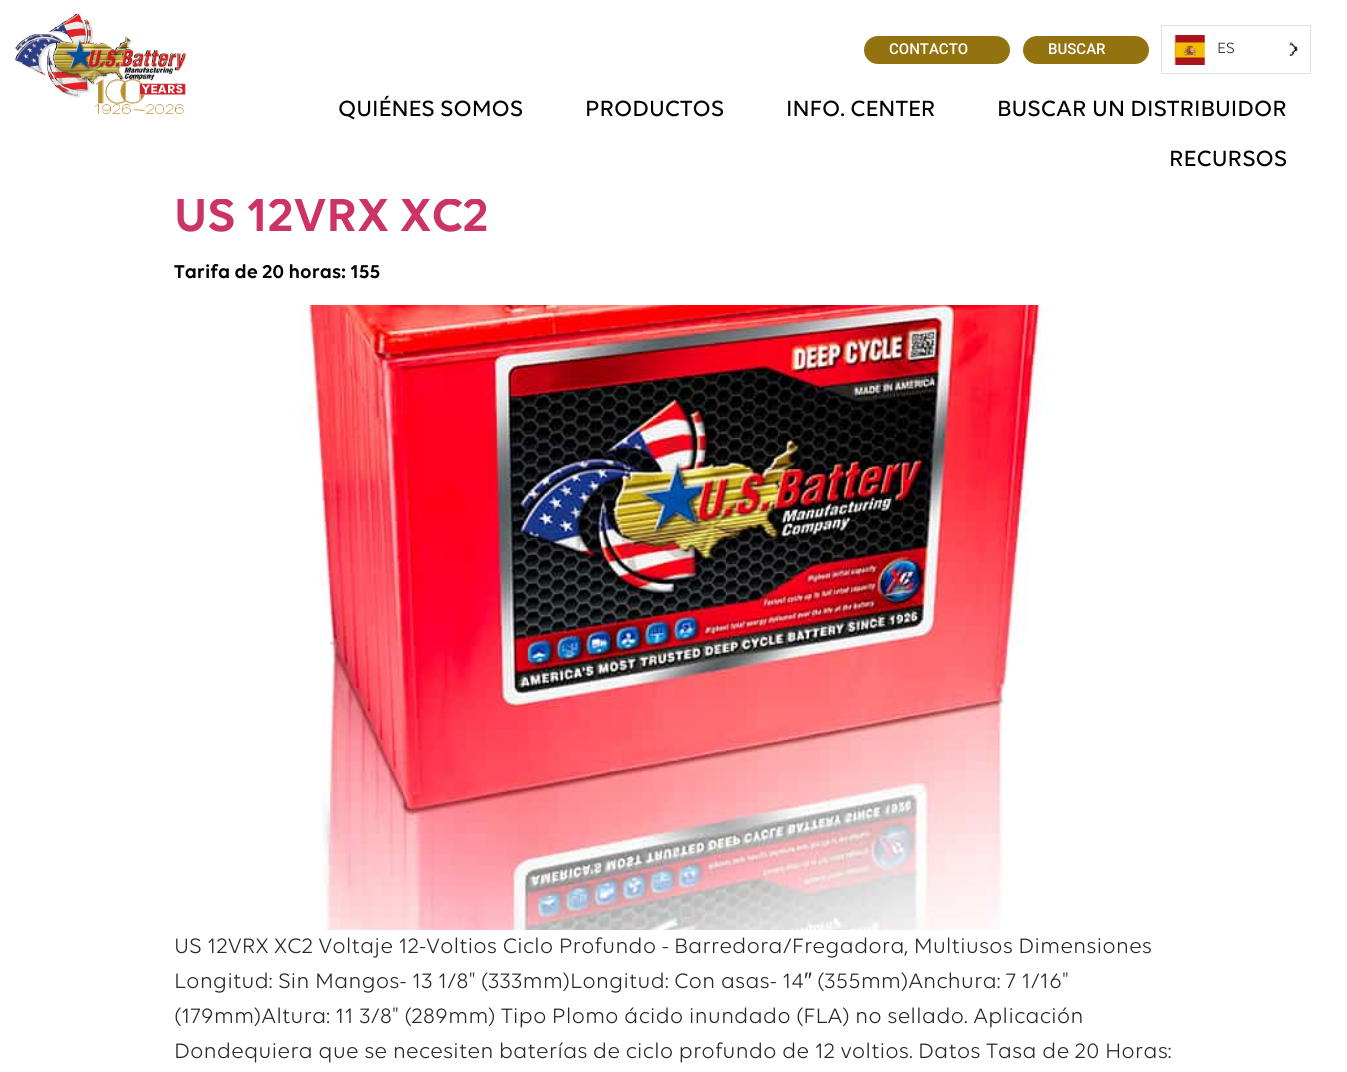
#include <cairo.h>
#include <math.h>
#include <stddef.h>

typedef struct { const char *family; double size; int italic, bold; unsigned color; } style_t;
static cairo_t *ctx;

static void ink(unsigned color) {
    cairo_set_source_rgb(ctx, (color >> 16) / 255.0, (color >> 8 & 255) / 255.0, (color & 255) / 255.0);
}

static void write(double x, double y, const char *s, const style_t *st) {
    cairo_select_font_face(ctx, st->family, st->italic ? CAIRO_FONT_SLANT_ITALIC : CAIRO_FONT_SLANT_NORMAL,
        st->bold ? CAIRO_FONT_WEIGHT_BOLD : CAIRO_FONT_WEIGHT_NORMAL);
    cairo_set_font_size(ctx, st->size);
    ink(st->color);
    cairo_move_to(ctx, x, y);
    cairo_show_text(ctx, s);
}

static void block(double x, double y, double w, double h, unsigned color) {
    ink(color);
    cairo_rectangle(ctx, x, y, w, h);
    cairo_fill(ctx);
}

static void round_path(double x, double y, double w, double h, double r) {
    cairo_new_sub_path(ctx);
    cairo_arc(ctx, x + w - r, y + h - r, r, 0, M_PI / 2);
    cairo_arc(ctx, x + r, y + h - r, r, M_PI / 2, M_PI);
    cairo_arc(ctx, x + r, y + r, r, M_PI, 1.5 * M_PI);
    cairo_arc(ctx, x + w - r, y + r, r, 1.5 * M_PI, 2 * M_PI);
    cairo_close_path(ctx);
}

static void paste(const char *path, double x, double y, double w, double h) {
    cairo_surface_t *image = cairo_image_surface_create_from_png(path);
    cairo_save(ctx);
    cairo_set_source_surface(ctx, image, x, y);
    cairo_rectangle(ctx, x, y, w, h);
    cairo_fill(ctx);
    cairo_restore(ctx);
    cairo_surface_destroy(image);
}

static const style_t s1 = {"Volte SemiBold", 50, 0, 0, 0xcc3366};
static const style_t s2 = {"Roboto Medium", 15, 0, 0, 0xffffff};
static const style_t s3 = {"Volte", 16, 0, 0, 0x282827};
static const style_t s4 = {"Volte Medium", 23.75, 0, 0, 0x000000};
static const style_t s5 = {"Volte SemiBold", 20, 0, 0, 0x000000};
static const style_t s6 = {"Volte", 22.5, 0, 0, 0x282827};
static const style_t s7 = {"Liberation Sans", 22.5, 0, 0, 0x282827};

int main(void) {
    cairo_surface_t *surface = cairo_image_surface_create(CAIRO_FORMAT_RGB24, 1347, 1072);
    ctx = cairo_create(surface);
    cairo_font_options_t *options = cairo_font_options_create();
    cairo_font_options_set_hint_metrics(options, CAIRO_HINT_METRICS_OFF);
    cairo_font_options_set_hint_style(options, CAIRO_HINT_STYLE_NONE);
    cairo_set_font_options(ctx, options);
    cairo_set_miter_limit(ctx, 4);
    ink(0xffffff);
    cairo_paint(ctx);
    write(174, 231, "US 12VRX XC2", &s1);
    block(177, 198, 303, 1, 0xffffff);
    paste("pic1.png", 15, 13, 172, 102);
    ink(0x937210);
    round_path(864, 36, 146, 28, 14);
    cairo_fill(ctx);
    write(889, 54, "CONTACTO", &s2);
    ink(0x937210);
    round_path(1023, 36, 126, 28, 14);
    cairo_fill(ctx);
    write(1048, 54, "BUSCAR", &s2);
    cairo_rectangle(ctx, 1161.5, 25.5, 149, 48);
    ink(0xe0e0e0);
    cairo_set_line_width(ctx, 1);
    cairo_stroke(ctx);
    paste("pic2.png", 1174, 35, 31, 30);
    write(1217, 53, "ES", &s3);
    paste("pic3.png", 1289, 42, 9, 14);
    write(338, 116, "QUIÉNES SOMOS", &s4);
    write(585, 116, "PRODUCTOS", &s4);
    write(786, 116, "INFO. CENTER", &s4);
    write(997, 116, "BUSCAR UN DISTRIBUIDOR", &s4);
    write(1169, 166, "RECURSOS", &s4);
    write(174, 278, "Tarifa de 20 horas: 155", &s5);
    paste("pic4.png", 299, 305, 750, 625);
    write(174, 953, "US 12VRX XC2 Voltaje 12-Voltios Ciclo Profundo - Barredora/Fregadora, Multiusos Dimensiones", &s6);
    write(174, 988, "Longitud: Sin Mangos- 13 1/8\" (333mm)Longitud: Con asas- 14", &s6);
    write(804, 988, "″", &s7);
    write(817, 988, "(355mm)Anchura: 7 1/16\"", &s6);
    write(174, 1023, "(179mm)Altura: 11 3/8\" (289mm) Tipo Plomo ácido inundado (FLA) no sellado. Aplicación", &s6);
    write(174, 1058, "Dondequiera que se necesiten baterías de ciclo profundo de 12 voltios. Datos Tasa de 20 Horas:", &s6);
    cairo_surface_write_to_png(surface, "screenshot.png");
    cairo_font_options_destroy(options);
    cairo_destroy(ctx);
    cairo_surface_destroy(surface);
    return 0;
}
